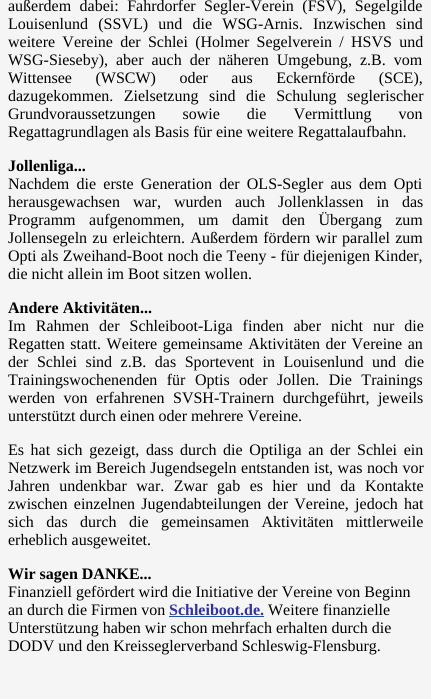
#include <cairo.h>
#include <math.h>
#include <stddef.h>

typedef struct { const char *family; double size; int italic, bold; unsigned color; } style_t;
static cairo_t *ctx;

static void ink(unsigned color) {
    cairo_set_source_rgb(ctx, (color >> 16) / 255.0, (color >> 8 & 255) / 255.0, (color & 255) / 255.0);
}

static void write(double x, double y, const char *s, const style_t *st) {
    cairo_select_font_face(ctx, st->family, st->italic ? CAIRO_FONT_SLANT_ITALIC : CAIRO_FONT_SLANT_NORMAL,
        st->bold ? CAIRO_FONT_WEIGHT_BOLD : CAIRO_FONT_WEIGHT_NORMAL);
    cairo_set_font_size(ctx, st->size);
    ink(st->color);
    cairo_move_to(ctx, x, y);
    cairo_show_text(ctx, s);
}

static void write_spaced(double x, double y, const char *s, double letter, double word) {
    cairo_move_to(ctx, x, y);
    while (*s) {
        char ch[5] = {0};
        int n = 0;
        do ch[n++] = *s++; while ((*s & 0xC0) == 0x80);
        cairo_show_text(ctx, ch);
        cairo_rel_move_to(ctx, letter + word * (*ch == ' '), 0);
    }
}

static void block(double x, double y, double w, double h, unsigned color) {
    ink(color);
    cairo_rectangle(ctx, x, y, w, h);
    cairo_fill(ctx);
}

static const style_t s1 = {"Liberation Serif", 16, 0, 0, 0x000000};
static const style_t s2 = {"Liberation Serif", 16, 0, 1, 0x000000};
static const style_t s3 = {"Liberation Serif", 16, 0, 1, 0x333399};

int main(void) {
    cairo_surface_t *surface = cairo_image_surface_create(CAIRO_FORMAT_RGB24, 431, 699);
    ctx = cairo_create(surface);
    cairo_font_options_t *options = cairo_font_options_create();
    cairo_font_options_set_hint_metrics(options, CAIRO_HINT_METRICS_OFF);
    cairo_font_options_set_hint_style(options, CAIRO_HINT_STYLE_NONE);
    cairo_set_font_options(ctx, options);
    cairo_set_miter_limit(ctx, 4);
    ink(0xf5f5f5);
    cairo_paint(ctx);
    cairo_select_font_face(ctx, "Liberation Serif", CAIRO_FONT_SLANT_NORMAL, CAIRO_FONT_WEIGHT_NORMAL);
    cairo_set_font_size(ctx, 16);
    ink(0x000000);
    write_spaced(8, 11, "außerdem dabei: Fahrdorfer Segler-Verein (FSV), Segelgilde", 0, 4.5);
    write_spaced(8, 29, "Louisenlund (SSVL) und die WSG-Arnis. Inzwischen sind", 0, 6.25);
    write_spaced(8, 47, "weitere Vereine der Schlei (Holmer Segelverein / HSVS und", 0, 3.25);
    write_spaced(8, 65, "WSG-Sieseby), aber auch der näheren Umgebung, z.B. vom", 0, 4);
    write_spaced(8, 83, "Wittensee (WSCW) oder aus Eckernförde (SCE),", 0, 19.5);
    write_spaced(8, 101, "dazugekommen. Zielsetzung sind die Schulung seglerischer", 0, 6.5);
    write_spaced(8, 119, "Grundvoraussetzungen sowie die Vermittlung von", 0, 23);
    write(8, 137, "Regattagrundlagen als Basis für eine weitere Regattalaufbahn.", &s1);
    write(8, 171, "Jollenliga...", &s2);
    cairo_select_font_face(ctx, "Liberation Serif", CAIRO_FONT_SLANT_NORMAL, CAIRO_FONT_WEIGHT_NORMAL);
    write_spaced(8, 189, "Nachdem die erste Generation der OLS-Segler aus dem Opti", 0, 3.25);
    write_spaced(8, 207, "herausgewachsen war, wurden auch Jollenklassen in das", 0, 9);
    write_spaced(8, 225, "Programm aufgenommen, um damit den Übergang zum", 0, 9.5);
    write_spaced(8, 243, "Jollensegeln zu erleichtern. Außerdem fördern wir parallel zum", 0, 1.25);
    write_spaced(8, 261, "Opti als Zweihand-Boot noch die Teeny - für diejenigen Kinder,", 0, 0.25);
    write(8, 279, "die nicht allein im Boot sitzen wollen.", &s1);
    write(8, 313, "Andere Aktivitäten...", &s2);
    cairo_select_font_face(ctx, "Liberation Serif", CAIRO_FONT_SLANT_NORMAL, CAIRO_FONT_WEIGHT_NORMAL);
    write_spaced(8, 331, "Im Rahmen der Schleiboot-Liga finden aber nicht nur die", 0, 6);
    write_spaced(8, 349, "Regatten statt. Weitere gemeinsame Aktivitäten der Vereine an", 0, 1.5);
    write_spaced(8, 367, "der Schlei sind z.B. das Sportevent in Louisenlund und die", 0, 4.5);
    write_spaced(8, 385, "Trainingswochenenden für Optis oder Jollen. Die Trainings", 0, 5.5);
    write_spaced(8, 403, "werden von erfahrenen SVSH-Trainern durchgeführt, jeweils", 0, 4.5);
    write(8, 421, "unterstützt durch einen oder mehrere Vereine.", &s1);
    write_spaced(8, 455, "Es hat sich gezeigt, dass durch die Optiliga an der Schlei ein", 0, 2.6);
    write_spaced(8, 473, "Netzwerk im Bereich Jugendsegeln entstanden ist, was noch vor", 0, 0.5);
    write_spaced(8, 491, "Jahren undenkbar war. Zwar gab es hier und da Kontakte", 0, 5.5);
    write_spaced(8, 509, "zwischen einzelnen Jugendabteilungen der Vereine, jedoch hat", 0, 2.25);
    write_spaced(8, 527, "sich das durch die gemeinsamen Aktivitäten mittlerweile", 0, 8.5);
    write(8, 545, "erheblich ausgeweitet.", &s1);
    write(8, 579, "Wir sagen DANKE...", &s2);
    write(8, 597, "Finanziell gefördert wird die Initiative der Vereine von Beginn", &s1);
    write(8, 615, "an durch die Firmen von", &s1);
    write(169, 615, "Schleiboot.de.", &s3);
    block(169, 616, 95, 1, 0x20549e);
    write(268, 615, "Weitere finanzielle", &s1);
    write(8, 633, "Unterstützung haben wir schon mehrfach erhalten durch die", &s1);
    write(8, 651, "DODV und den Kreisseglerverband Schleswig-Flensburg.", &s1);
    cairo_surface_write_to_png(surface, "screenshot.png");
    cairo_font_options_destroy(options);
    cairo_destroy(ctx);
    cairo_surface_destroy(surface);
    return 0;
}
